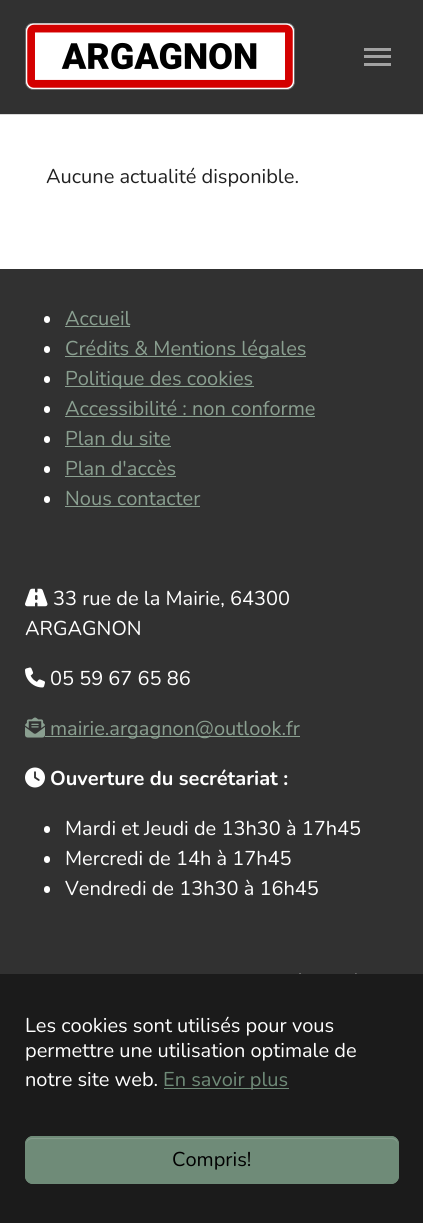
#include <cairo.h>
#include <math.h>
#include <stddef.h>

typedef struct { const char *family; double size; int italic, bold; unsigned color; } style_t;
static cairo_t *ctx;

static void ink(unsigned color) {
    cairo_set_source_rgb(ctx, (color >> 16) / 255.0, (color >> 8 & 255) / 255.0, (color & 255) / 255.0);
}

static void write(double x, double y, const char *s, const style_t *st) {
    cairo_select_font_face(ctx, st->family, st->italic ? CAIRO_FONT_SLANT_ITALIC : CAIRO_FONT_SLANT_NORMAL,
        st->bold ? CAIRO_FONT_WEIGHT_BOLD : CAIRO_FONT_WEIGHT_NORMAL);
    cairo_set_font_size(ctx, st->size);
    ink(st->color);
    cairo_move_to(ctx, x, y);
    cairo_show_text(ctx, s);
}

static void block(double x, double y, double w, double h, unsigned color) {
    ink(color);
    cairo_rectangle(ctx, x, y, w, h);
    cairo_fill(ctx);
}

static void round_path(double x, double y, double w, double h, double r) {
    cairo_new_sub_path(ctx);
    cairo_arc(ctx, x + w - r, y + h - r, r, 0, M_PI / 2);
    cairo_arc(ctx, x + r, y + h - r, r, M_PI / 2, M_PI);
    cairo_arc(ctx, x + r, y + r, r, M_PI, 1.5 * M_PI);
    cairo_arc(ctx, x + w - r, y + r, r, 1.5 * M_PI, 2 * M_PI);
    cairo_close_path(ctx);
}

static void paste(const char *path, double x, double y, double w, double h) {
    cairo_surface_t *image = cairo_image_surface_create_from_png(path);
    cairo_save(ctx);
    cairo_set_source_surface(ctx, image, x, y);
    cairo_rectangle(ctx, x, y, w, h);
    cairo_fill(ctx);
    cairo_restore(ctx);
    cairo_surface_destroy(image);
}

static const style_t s1 = {"Nunito", 20, 0, 0, 0x212121};
static const style_t s2 = {"Nunito", 20, 0, 0, 0x8a9f90};
static const style_t s3 = {"Nunito", 20, 0, 0, 0xffffff};
static const style_t s4 = {"Nunito", 20, 0, 1, 0xffffff};
static const style_t s5 = {"Nunito", 20, 0, 0, 0x6f8b78};
static const style_t s6 = {"Nunito", 20, 0, 0, 0x000000};

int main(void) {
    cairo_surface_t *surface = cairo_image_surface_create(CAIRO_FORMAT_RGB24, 423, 1223);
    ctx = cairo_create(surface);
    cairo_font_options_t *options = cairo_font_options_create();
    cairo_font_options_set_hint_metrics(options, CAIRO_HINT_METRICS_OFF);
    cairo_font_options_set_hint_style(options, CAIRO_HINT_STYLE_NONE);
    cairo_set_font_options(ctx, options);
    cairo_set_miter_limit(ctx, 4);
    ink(0xffffff);
    cairo_paint(ctx);
    ink(0xd9d9d9);
    cairo_new_path(ctx);
    cairo_move_to(ctx, 0, 114);
    cairo_line_to(ctx, 0, 115);
    cairo_line_to(ctx, 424, 115);
    cairo_line_to(ctx, 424, 1);
    cairo_line_to(ctx, 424, 114);
    cairo_close_path(ctx);
    cairo_fill(ctx);
    block(0, 0, 423, 114, 0x313131);
    paste("pic1.png", 25, 23, 270, 67);
    block(364, 55, 27, 3, 0xa2a2a2);
    block(364, 48, 27, 3, 0xa2a2a2);
    block(364, 63, 27, 3, 0xa2a2a2);
    write(46, 183, "Aucune actualité disponible.", &s1);
    block(0, 269, 423, 705, 0x313131);
    ink(0xffffff);
    round_path(44, 316, 6, 7, 3);
    cairo_fill(ctx);
    write(65, 325, "Accueil", &s2);
    block(65, 326, 65, 1, 0x8a9f90);
    ink(0xffffff);
    round_path(44, 346, 6, 7, 3);
    cairo_fill(ctx);
    block(65, 356, 241, 1, 0x8a9f90);
    write(65, 355, "Crédits & Mentions légales", &s2);
    ink(0xffffff);
    round_path(44, 376, 6, 7, 3);
    cairo_fill(ctx);
    block(65, 386, 189, 1, 0x8a9f90);
    write(65, 385, "Politique des cookies", &s2);
    ink(0xffffff);
    round_path(44, 406, 6, 7, 3);
    cairo_fill(ctx);
    write(65, 415, "Accessibilité : non conforme", &s2);
    block(65, 416, 250, 1, 0x8a9f90);
    ink(0xffffff);
    round_path(44, 436, 6, 7, 3);
    cairo_fill(ctx);
    write(65, 445, "Plan du site", &s2);
    block(65, 446, 106, 1, 0x8a9f90);
    ink(0xffffff);
    round_path(44, 466, 6, 7, 3);
    cairo_fill(ctx);
    write(65, 475, "Plan d'accès", &s2);
    block(65, 476, 111, 1, 0x8a9f90);
    ink(0xffffff);
    round_path(44, 496, 6, 7, 3);
    cairo_fill(ctx);
    write(65, 505, "Nous contacter", &s2);
    block(65, 506, 135, 1, 0x8a9f90);
    paste("pic2.png", 25, 588, 23, 19);
    write(53, 605, "33 rue de la Mairie, 64300", &s3);
    write(25, 635, "ARGAGNON", &s3);
    paste("pic3.png", 25, 667, 20, 21);
    write(50, 685, "05 59 67 65 86", &s3);
    paste("pic4.png", 25, 717, 20, 21);
    block(45, 736, 255, 1, 0x8a9f90);
    write(50, 735, "mairie.argagnon@outlook.fr", &s2);
    paste("pic5.png", 25, 767, 20, 21);
    write(50, 785, "Ouverture du secrétariat :", &s4);
    round_path(44, 826, 6, 7, 3);
    cairo_fill(ctx);
    write(65, 835, "Mardi et Jeudi de 13h30 à 17h45", &s3);
    round_path(44, 856, 6, 7, 3);
    cairo_fill(ctx);
    write(65, 865, "Mercredi de 14h à 17h45", &s3);
    round_path(44, 886, 6, 7, 3);
    cairo_fill(ctx);
    write(65, 895, "Vendredi de 13h30 à 16h45", &s3);
    paste("pic6.png", 299, 973, 58, 1);
    block(0, 974, 423, 249, 0x1b1b1b);
    write(25, 1032, "Les cookies sont utilisés pour vous", &s3);
    write(25, 1057, "permettre une utilisation optimale de", &s3);
    write(25, 1086, "notre site web.", &s3);
    block(164, 1088, 125, 1, 0x6f8b78);
    write(163, 1086, "En savoir plus", &s5);
    round_path(25, 1136, 374, 48, 8);
    cairo_fill(ctx);
    ink(0x859c8c);
    cairo_new_path(ctx);
    cairo_move_to(ctx, 32, 1139);
    cairo_line_to(ctx, 391, 1139);
    cairo_curve_to(ctx, 395, 1139, 398, 1142, 398, 1145);
    cairo_curve_to(ctx, 398, 1141, 396, 1138, 392, 1138);
    cairo_line_to(ctx, 32, 1138);
    cairo_curve_to(ctx, 28, 1138, 26, 1141, 26, 1145);
    cairo_curve_to(ctx, 26, 1142, 29, 1139, 32, 1139);
    cairo_close_path(ctx);
    cairo_fill(ctx);
    round_path(25.5, 1136.5, 373, 47, 7.5);
    ink(0x6f8b78);
    cairo_set_line_width(ctx, 1);
    cairo_stroke(ctx);
    write(172, 1166, "Compris!", &s6);
    cairo_surface_write_to_png(surface, "screenshot.png");
    cairo_font_options_destroy(options);
    cairo_destroy(ctx);
    cairo_surface_destroy(surface);
    return 0;
}
